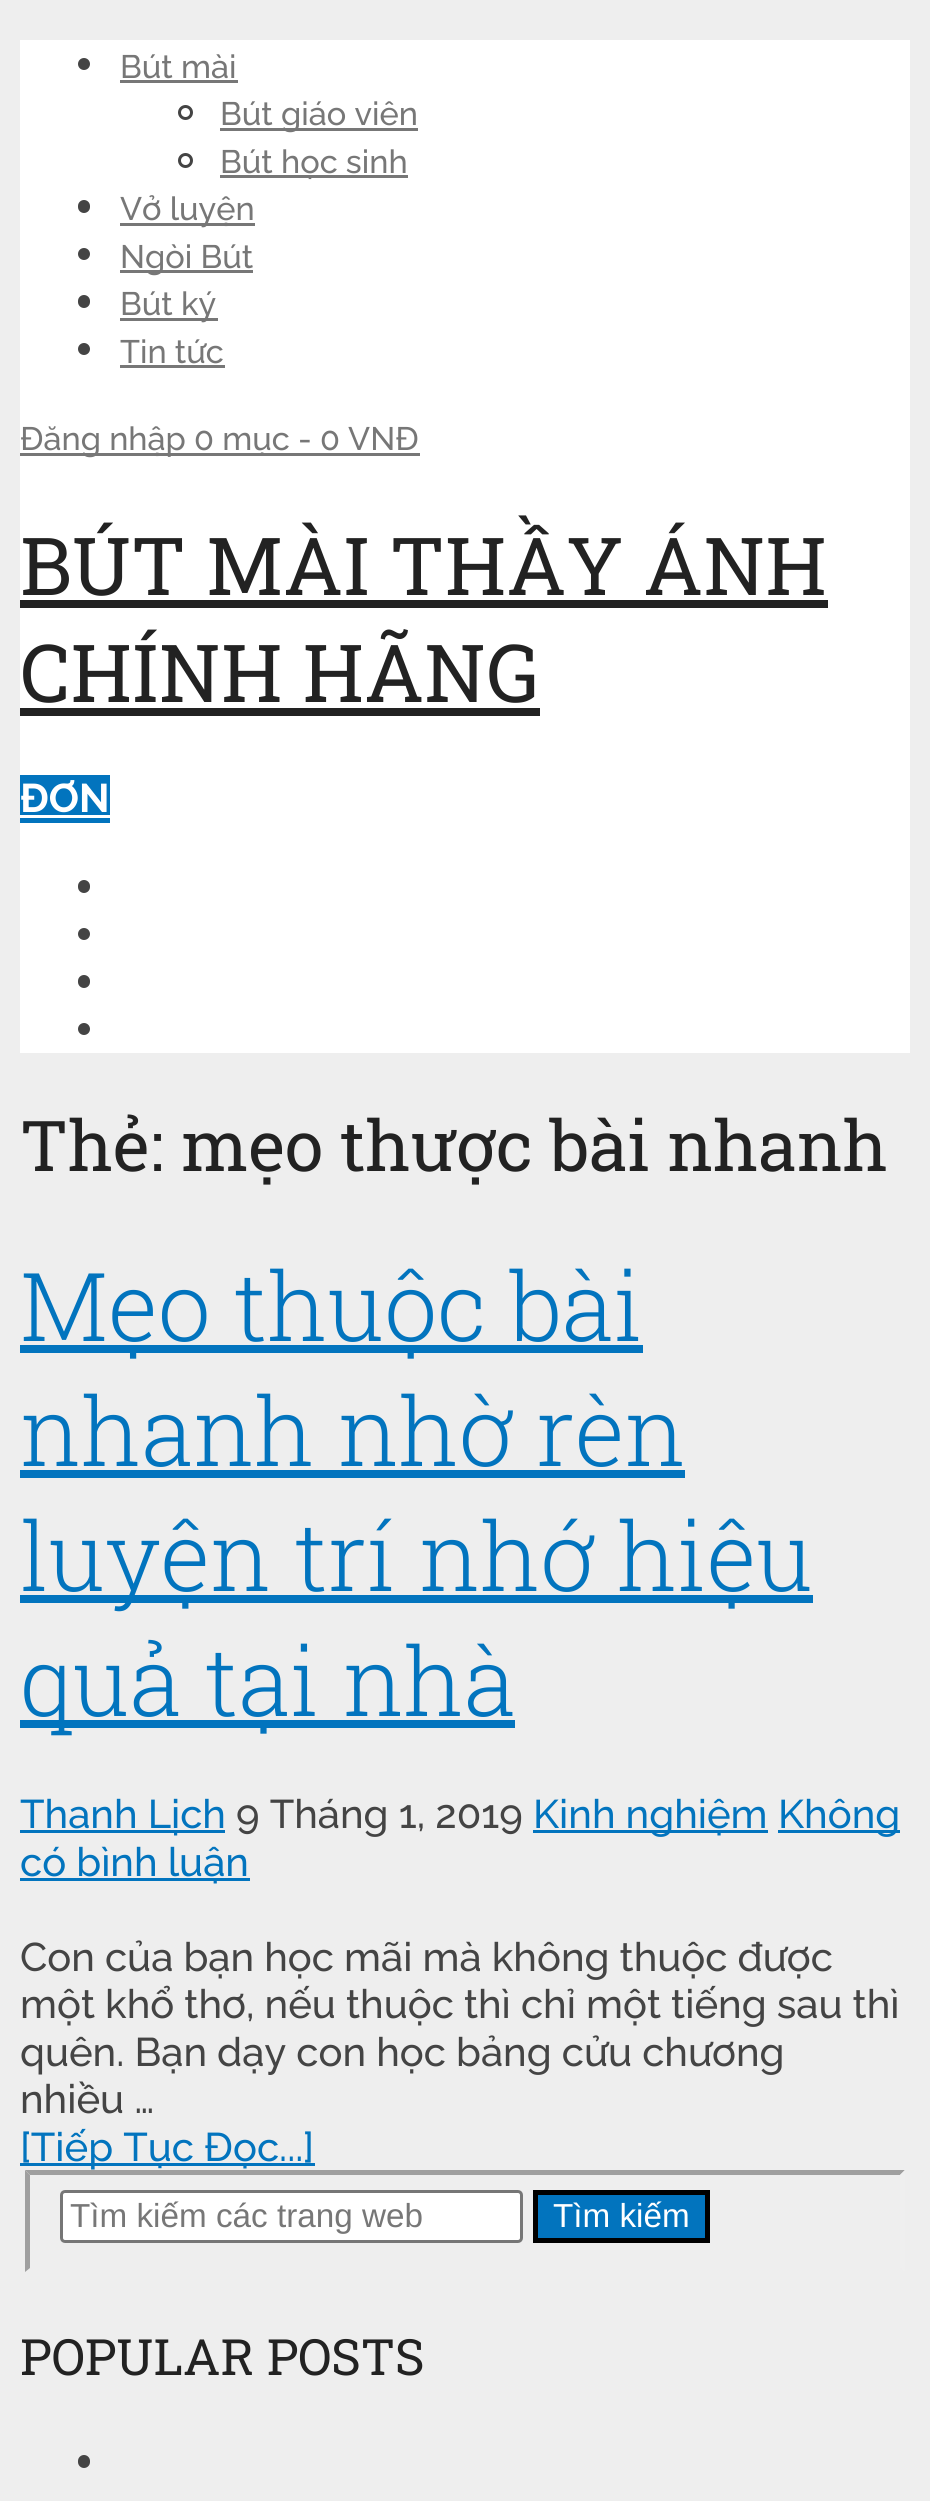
#include <cairo.h>
#include <math.h>
#include <stddef.h>

typedef struct { const char *family; double size; int italic, bold; unsigned color; } style_t;
static cairo_t *ctx;

static void ink(unsigned color) {
    cairo_set_source_rgb(ctx, (color >> 16) / 255.0, (color >> 8 & 255) / 255.0, (color & 255) / 255.0);
}

static void write(double x, double y, const char *s, const style_t *st) {
    cairo_select_font_face(ctx, st->family, st->italic ? CAIRO_FONT_SLANT_ITALIC : CAIRO_FONT_SLANT_NORMAL,
        st->bold ? CAIRO_FONT_WEIGHT_BOLD : CAIRO_FONT_WEIGHT_NORMAL);
    cairo_set_font_size(ctx, st->size);
    ink(st->color);
    cairo_move_to(ctx, x, y);
    cairo_show_text(ctx, s);
}

static void block(double x, double y, double w, double h, unsigned color) {
    ink(color);
    cairo_rectangle(ctx, x, y, w, h);
    cairo_fill(ctx);
}

static void round_path(double x, double y, double w, double h, double r) {
    cairo_new_sub_path(ctx);
    cairo_arc(ctx, x + w - r, y + h - r, r, 0, M_PI / 2);
    cairo_arc(ctx, x + r, y + h - r, r, M_PI / 2, M_PI);
    cairo_arc(ctx, x + r, y + r, r, M_PI, 1.5 * M_PI);
    cairo_arc(ctx, x + w - r, y + r, r, 1.5 * M_PI, 2 * M_PI);
    cairo_close_path(ctx);
}

static const style_t s1 = {"Raleway Medium", 32.5, 0, 0, 0x777777};
static const style_t s2 = {"Roboto Slab", 80, 0, 0, 0x222222};
static const style_t s3 = {"Raleway", 40, 0, 1, 0xffffff};
static const style_t s4 = {"Roboto Slab", 70, 0, 0, 0x222222};
static const style_t s5 = {"Roboto Slab Light", 95, 0, 0, 0x0274be};
static const style_t s6 = {"Raleway Medium", 40, 0, 0, 0x0274be};
static const style_t s7 = {"Raleway Medium", 40, 0, 0, 0x444444};
static const style_t s8 = {"Liberation Sans", 33.25, 0, 0, 0x777777};
static const style_t s9 = {"Liberation Sans", 33.25, 0, 0, 0xffffff};
static const style_t s10 = {"Roboto Slab", 50, 0, 0, 0x222222};

int main(void) {
    cairo_surface_t *surface = cairo_image_surface_create(CAIRO_FORMAT_RGB24, 930, 2501);
    ctx = cairo_create(surface);
    cairo_font_options_t *options = cairo_font_options_create();
    cairo_font_options_set_hint_metrics(options, CAIRO_HINT_METRICS_OFF);
    cairo_font_options_set_hint_style(options, CAIRO_HINT_STYLE_NONE);
    cairo_set_font_options(ctx, options);
    cairo_set_miter_limit(ctx, 4);
    ink(0xeeeeee);
    cairo_paint(ctx);
    block(20, 40, 890, 1013, 0xffffff);
    ink(0x444444);
    cairo_arc(ctx, 84, 64, 6, 0, 2 * M_PI);
    cairo_fill(ctx);
    write(120, 78, "Bút mài", &s1);
    block(120, 80, 118, 3, 0x777777);
    cairo_new_path(ctx);
    cairo_arc(ctx, 185.5, 112.5, 6, 0, 2 * M_PI);
    ink(0x444444);
    cairo_set_line_width(ctx, 3);
    cairo_stroke(ctx);
    block(220, 128, 198, 3, 0x777777);
    write(220, 125, "Bút giáo viên", &s1);
    cairo_new_path(ctx);
    cairo_arc(ctx, 185.5, 160.5, 6, 0, 2 * M_PI);
    ink(0x444444);
    cairo_stroke(ctx);
    block(220, 175, 188, 3, 0x777777);
    write(220, 173, "Bút học sinh", &s1);
    ink(0x444444);
    round_path(78, 200, 12, 13, 6);
    cairo_fill(ctx);
    block(120, 223, 135, 3, 0x777777);
    write(120, 220, "Vở luyện", &s1);
    ink(0x444444);
    cairo_new_path(ctx);
    cairo_arc(ctx, 84, 254, 6, 0, 2 * M_PI);
    cairo_fill(ctx);
    block(120, 270, 133, 3, 0x777777);
    write(120, 268, "Ngòi Bút", &s1);
    ink(0x444444);
    round_path(78, 295, 12, 13, 6);
    cairo_fill(ctx);
    block(120, 318, 98, 3, 0x777777);
    write(120, 315, "Bút ký", &s1);
    ink(0x444444);
    cairo_new_path(ctx);
    cairo_arc(ctx, 84, 349, 6, 0, 2 * M_PI);
    cairo_fill(ctx);
    write(120, 363, "Tin tức", &s1);
    block(120, 365, 105, 3, 0x777777);
    block(20, 453, 400, 3, 0x777777);
    write(20, 450, "Đăng nhập 0 mục - 0 VNĐ", &s1);
    write(20, 595, "BÚT MÀI THẦY ÁNH", &s2);
    block(20, 600, 808, 8, 0x222222);
    write(20, 702, "CHÍNH HÃNG", &s2);
    block(20, 708, 520, 8, 0x222222);
    block(20, 775, 90, 48, 0x0274be);
    write(20, 812, "ĐƠN", &s3);
    block(20, 815, 90, 3, 0xffffff);
    ink(0x444444);
    round_path(78, 880, 12, 13, 6);
    cairo_fill(ctx);
    cairo_arc(ctx, 84, 934, 6, 0, 2 * M_PI);
    cairo_fill(ctx);
    round_path(78, 975, 12, 13, 6);
    cairo_fill(ctx);
    cairo_arc(ctx, 84, 1029, 6, 0, 2 * M_PI);
    cairo_fill(ctx);
    write(20, 1171, "Thẻ: mẹo thược bài nhanh", &s4);
    block(20, 1345, 623, 8, 0x0274be);
    write(20, 1341, "Mẹo thuộc bài", &s5);
    write(20, 1466, "nhanh nhờ rèn", &s5);
    block(20, 1470, 665, 8, 0x0274be);
    block(20, 1595, 793, 8, 0x0274be);
    write(20, 1591, "luyện trí nhớ hiệu", &s5);
    block(20, 1720, 495, 8, 0x0274be);
    write(20, 1716, "quả tại nhà", &s5);
    block(20, 1830, 205, 3, 0x0274be);
    write(20, 1828, "Thanh Lịch", &s6);
    write(236, 1828, "9 Tháng 1, 2019", &s7);
    block(533, 1830, 235, 3, 0x0274be);
    write(533, 1828, "Kinh nghiệm", &s6);
    block(778, 1830, 122, 3, 0x0274be);
    write(778, 1828, "Không", &s6);
    block(20, 1878, 230, 3, 0x0274be);
    write(20, 1876, "có bình luận", &s6);
    write(20, 1971, "Con của bạn học mãi mà không thuộc được", &s7);
    write(20, 2018, "một khổ thơ, nếu thuộc thì chỉ một tiếng sau thì", &s7);
    write(20, 2066, "quên. Bạn dạy con học bảng cửu chương", &s7);
    write(20, 2113, "nhiều …", &s7);
    block(20, 2163, 295, 3, 0x0274be);
    write(20, 2161, "[Tiếp Tục Đọc...]", &s6);
    ink(0x9f9f9f);
    cairo_new_path(ctx);
    cairo_move_to(ctx, 25, 2170);
    cairo_line_to(ctx, 905, 2170);
    cairo_line_to(ctx, 900, 2175);
    cairo_line_to(ctx, 30, 2175);
    cairo_close_path(ctx);
    cairo_fill(ctx);
    ink(0xefefef);
    cairo_new_path(ctx);
    cairo_move_to(ctx, 905, 2170);
    cairo_line_to(ctx, 905, 2272);
    cairo_line_to(ctx, 900, 2268);
    cairo_line_to(ctx, 900, 2175);
    cairo_close_path(ctx);
    cairo_fill(ctx);
    ink(0x9f9f9f);
    cairo_new_path(ctx);
    cairo_move_to(ctx, 25, 2272);
    cairo_line_to(ctx, 25, 2170);
    cairo_line_to(ctx, 30, 2175);
    cairo_line_to(ctx, 30, 2268);
    cairo_close_path(ctx);
    cairo_fill(ctx);
    ink(0xffffff);
    round_path(61.5, 2191.5, 460, 50, 3.5);
    cairo_fill_preserve(ctx);
    ink(0x767676);
    cairo_stroke(ctx);
    write(70, 2227, "Tìm kiếm các trang web", &s8);
    ink(0x0274be);
    cairo_rectangle(ctx, 535.5, 2192.5, 172, 48);
    cairo_fill_preserve(ctx);
    ink(0x000000);
    cairo_set_line_width(ctx, 5);
    cairo_stroke(ctx);
    write(553, 2227, "Tìm kiếm", &s9);
    write(20, 2375, "POPULAR POSTS", &s10);
    ink(0x444444);
    round_path(78, 2455, 12, 13, 6);
    cairo_fill(ctx);
    cairo_surface_write_to_png(surface, "screenshot.png");
    cairo_font_options_destroy(options);
    cairo_destroy(ctx);
    cairo_surface_destroy(surface);
    return 0;
}
